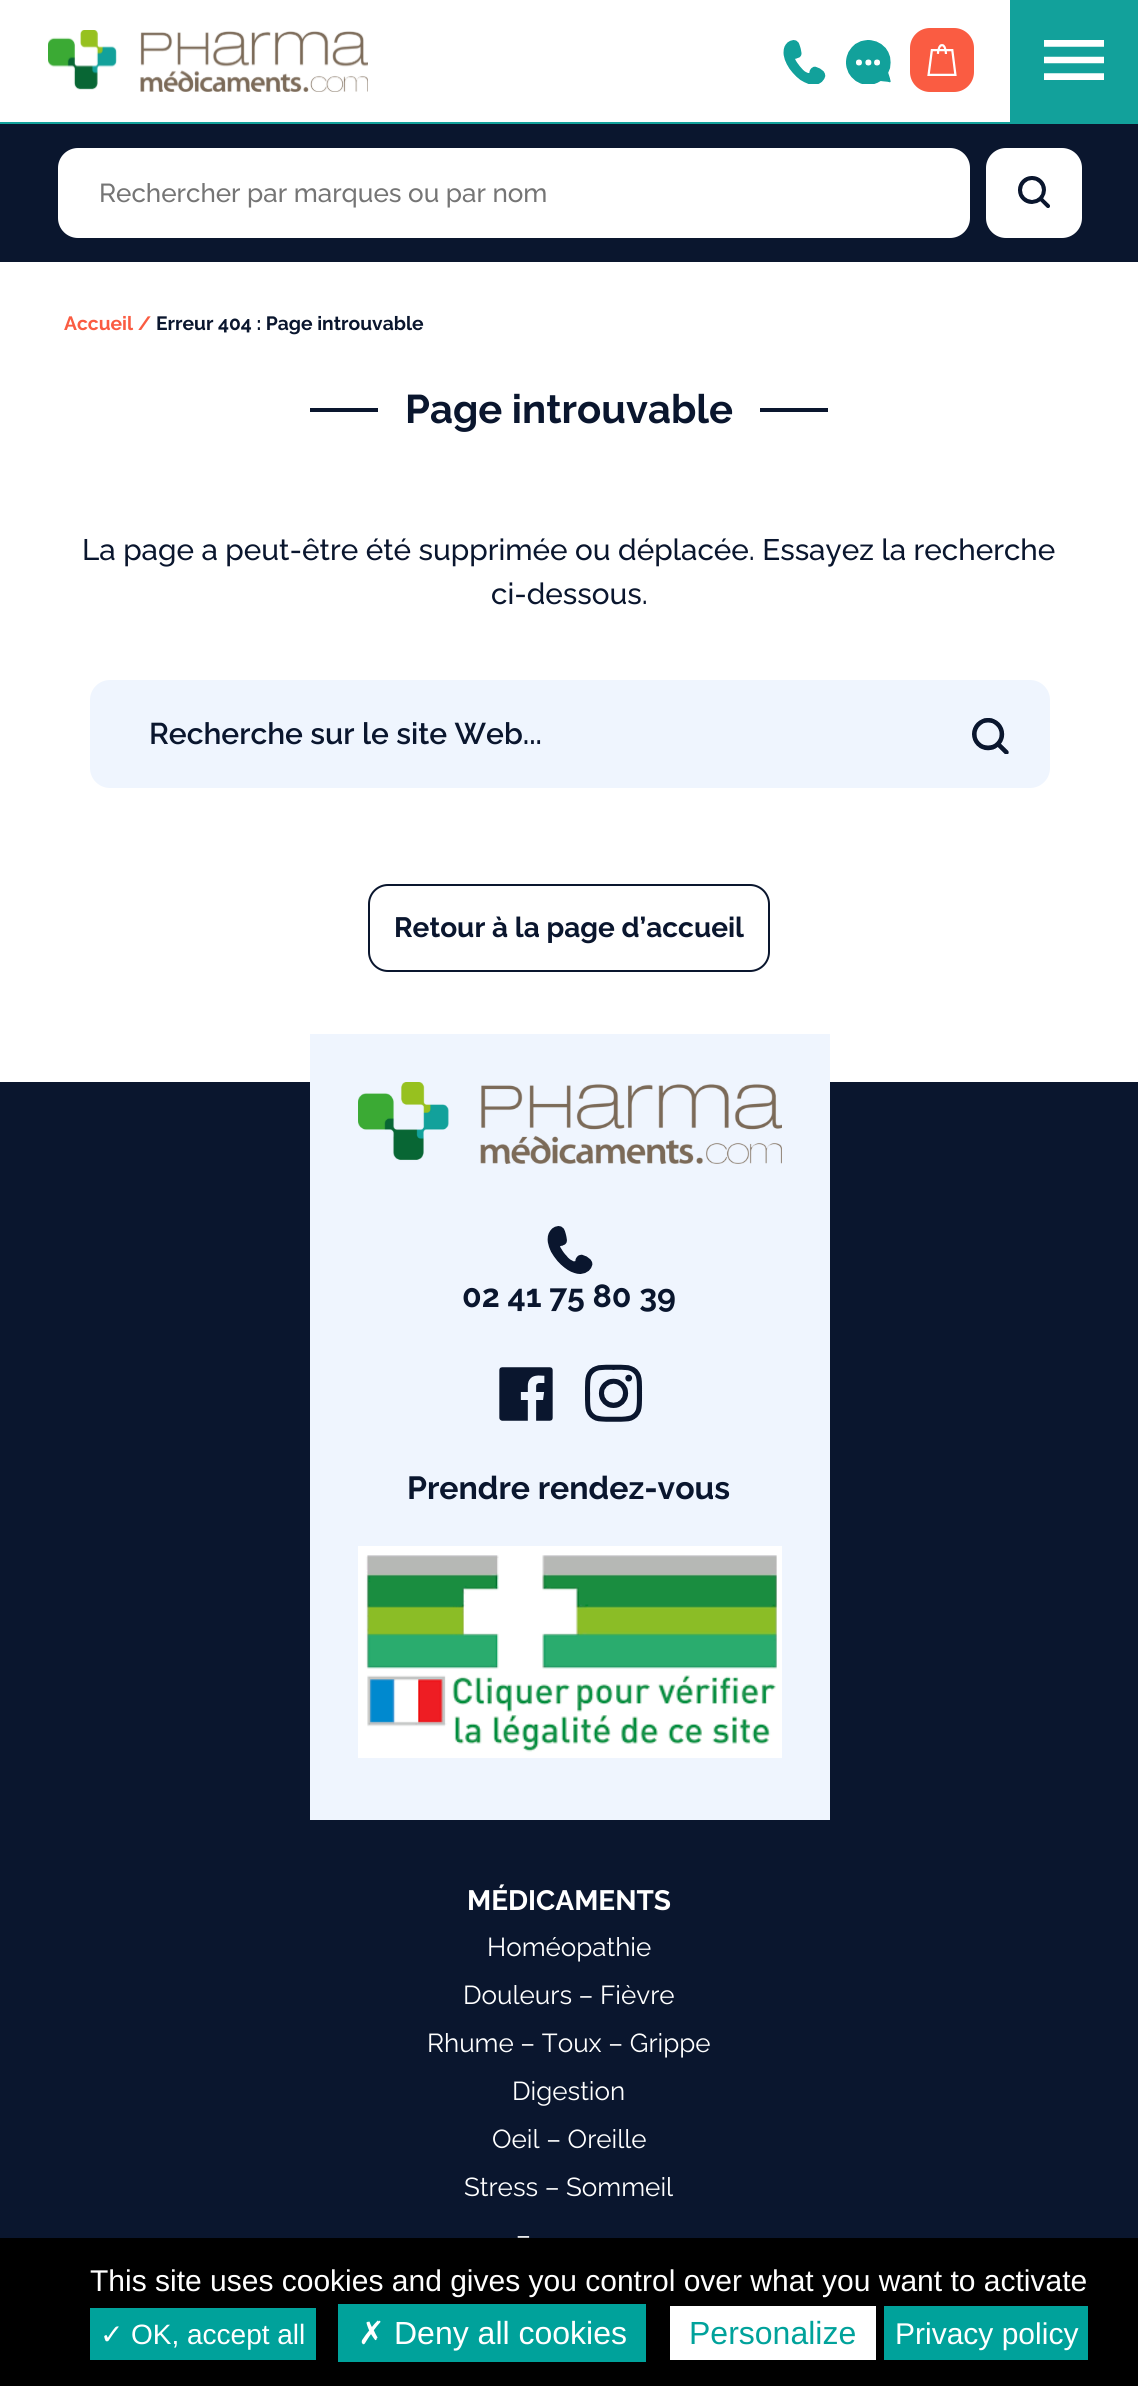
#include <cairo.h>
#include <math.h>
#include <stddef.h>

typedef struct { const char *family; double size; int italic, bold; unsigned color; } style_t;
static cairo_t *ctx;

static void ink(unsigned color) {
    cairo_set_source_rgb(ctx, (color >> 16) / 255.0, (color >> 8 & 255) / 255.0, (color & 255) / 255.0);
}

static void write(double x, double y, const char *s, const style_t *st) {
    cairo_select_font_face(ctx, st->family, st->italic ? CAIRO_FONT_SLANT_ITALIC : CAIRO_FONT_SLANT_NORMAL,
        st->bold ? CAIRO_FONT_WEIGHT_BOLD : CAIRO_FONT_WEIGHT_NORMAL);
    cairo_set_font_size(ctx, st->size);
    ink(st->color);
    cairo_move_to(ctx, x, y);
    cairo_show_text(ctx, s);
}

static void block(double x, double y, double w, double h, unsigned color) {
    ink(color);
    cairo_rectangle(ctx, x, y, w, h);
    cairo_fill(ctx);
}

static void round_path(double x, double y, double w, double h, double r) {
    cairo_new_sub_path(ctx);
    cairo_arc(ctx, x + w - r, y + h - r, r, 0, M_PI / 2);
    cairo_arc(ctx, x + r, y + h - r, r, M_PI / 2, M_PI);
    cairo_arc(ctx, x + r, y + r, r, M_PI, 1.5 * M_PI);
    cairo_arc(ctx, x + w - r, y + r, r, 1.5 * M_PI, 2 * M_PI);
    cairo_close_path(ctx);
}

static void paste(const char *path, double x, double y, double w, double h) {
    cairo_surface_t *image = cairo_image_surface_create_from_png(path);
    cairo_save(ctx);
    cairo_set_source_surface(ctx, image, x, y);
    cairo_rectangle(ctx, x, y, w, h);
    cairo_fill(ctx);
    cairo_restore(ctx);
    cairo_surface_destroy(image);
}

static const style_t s1 = {"Raleway Medium", 26, 0, 0, 0x757575};
static const style_t s2 = {"Raleway", 19.25, 0, 1, 0xfa5c42};
static const style_t s3 = {"Raleway", 19.25, 0, 1, 0x0a162e};
static const style_t s4 = {"Raleway", 40, 0, 1, 0x0a162e};
static const style_t s5 = {"Raleway Medium", 29.6, 0, 0, 0x0a162e};
static const style_t s6 = {"Raleway SemiBold", 30, 0, 0, 0x0a162e};
static const style_t s7 = {"Raleway", 28, 0, 1, 0x0a162e};
static const style_t s8 = {"Raleway", 32, 0, 1, 0x0a162e};
static const style_t s9 = {"Raleway", 28, 0, 1, 0xffffff};
static const style_t s10 = {"Raleway", 26, 0, 0, 0xffffff};
static const style_t s11 = {"Liberation Sans", 30, 0, 0, 0xffffff};
static const style_t s12 = {"DejaVu Sans", 28, 0, 0, 0xffffff};
static const style_t s13 = {"Liberation Sans", 28, 0, 0, 0xffffff};
static const style_t s14 = {"DejaVu Sans", 32, 0, 0, 0xffffff};
static const style_t s15 = {"Liberation Sans", 32, 0, 0, 0xffffff};
static const style_t s16 = {"Liberation Sans", 32, 0, 0, 0x00a29b};

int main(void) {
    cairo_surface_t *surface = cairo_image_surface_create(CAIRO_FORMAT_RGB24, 1138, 2386);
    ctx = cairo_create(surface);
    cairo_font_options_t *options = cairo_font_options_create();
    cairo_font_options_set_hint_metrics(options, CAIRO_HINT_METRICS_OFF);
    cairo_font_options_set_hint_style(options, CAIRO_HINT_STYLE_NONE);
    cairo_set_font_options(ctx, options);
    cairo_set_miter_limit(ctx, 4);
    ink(0xffffff);
    cairo_paint(ctx);
    block(0, 122, 1138, 2, 0x12a19b);
    paste("pic1.png", 48, 30, 320, 62);
    paste("pic2.png", 783, 40, 43, 44);
    paste("pic3.png", 846, 40, 45, 44);
    ink(0xfa5c42);
    round_path(910, 28, 64, 64, 20);
    cairo_fill(ctx);
    paste("pic4.png", 927, 44, 30, 32);
    block(1010, 0, 128, 122, 0x12a19b);
    paste("pic5.png", 1044, 40, 60, 40);
    block(0, 124, 1138, 138, 0x0a162e);
    ink(0xffffff);
    round_path(58, 148, 912, 90, 20);
    cairo_fill(ctx);
    write(99, 202, "Rechercher par marques ou par nom", &s1);
    ink(0xffffff);
    round_path(986, 148, 96, 90, 20);
    cairo_fill(ctx);
    paste("pic6.png", 1018, 176, 32, 32);
    write(64, 330, "Accueil /", &s2);
    write(156, 330, "Erreur 404 : Page introuvable", &s3);
    block(310, 408, 68, 4, 0x0a162e);
    write(405, 423, "Page introuvable", &s4);
    block(760, 408, 68, 4, 0x0a162e);
    write(82, 560, "La page a peut-être été supprimée ou déplacée. Essayez la recherche", &s5);
    write(491, 604, "ci-dessous.", &s5);
    ink(0xeff5fe);
    round_path(90, 680, 960, 108, 20);
    cairo_fill(ctx);
    write(149, 744, "Recherche sur le site Web...", &s6);
    paste("pic7.png", 972, 718, 37, 36);
    round_path(369, 885, 400, 86, 19);
    cairo_stroke(ctx);
    write(394, 937, "Retour à la page d’accueil", &s7);
    block(0, 1082, 1138, 1156, 0x0a162e);
    block(310, 1034, 520, 786, 0xeff5fe);
    paste("pic8.png", 358, 1082, 424, 82);
    paste("pic9.png", 547, 1226, 46, 48);
    write(462, 1307, "02 41 75 80 39", &s8);
    paste("pic10.png", 499, 1367, 54, 54);
    paste("pic11.png", 585, 1364, 58, 58);
    write(407, 1499, "Prendre rendez-vous", &s8);
    paste("pic12.png", 358, 1546, 424, 212);
    write(467, 1910, "MÉDICAMENTS", &s9);
    write(487, 1956, "Homéopathie", &s10);
    write(463, 2004, "Douleurs – Fièvre", &s10);
    write(427, 2052, "Rhume – Toux – Grippe", &s10);
    write(512, 2100, "Digestion", &s10);
    write(492, 2148, "Oeil – Oreille", &s10);
    write(464, 2196, "Stress – Sommeil", &s10);
    write(516, 2244, "–", &s10);
    block(0, 2238, 1138, 148, 0x000000);
    write(90, 2291, "This site uses cookies and gives you control over what you want to activate", &s11);
    block(90, 2308, 226, 52, 0x00a29b);
    write(100, 2344, "✓", &s12);
    write(131, 2344, "OK, accept all", &s13);
    block(338, 2304, 308, 58, 0x00a29b);
    write(358, 2344, "✗", &s14);
    write(394, 2344, "Deny all cookies", &s15);
    block(670, 2306, 206, 54, 0xffffff);
    write(689, 2344, "Personalize", &s16);
    block(884, 2306, 204, 54, 0x00a29b);
    write(895, 2344, "Privacy policy", &s11);
    cairo_surface_write_to_png(surface, "screenshot.png");
    cairo_font_options_destroy(options);
    cairo_destroy(ctx);
    cairo_surface_destroy(surface);
    return 0;
}
